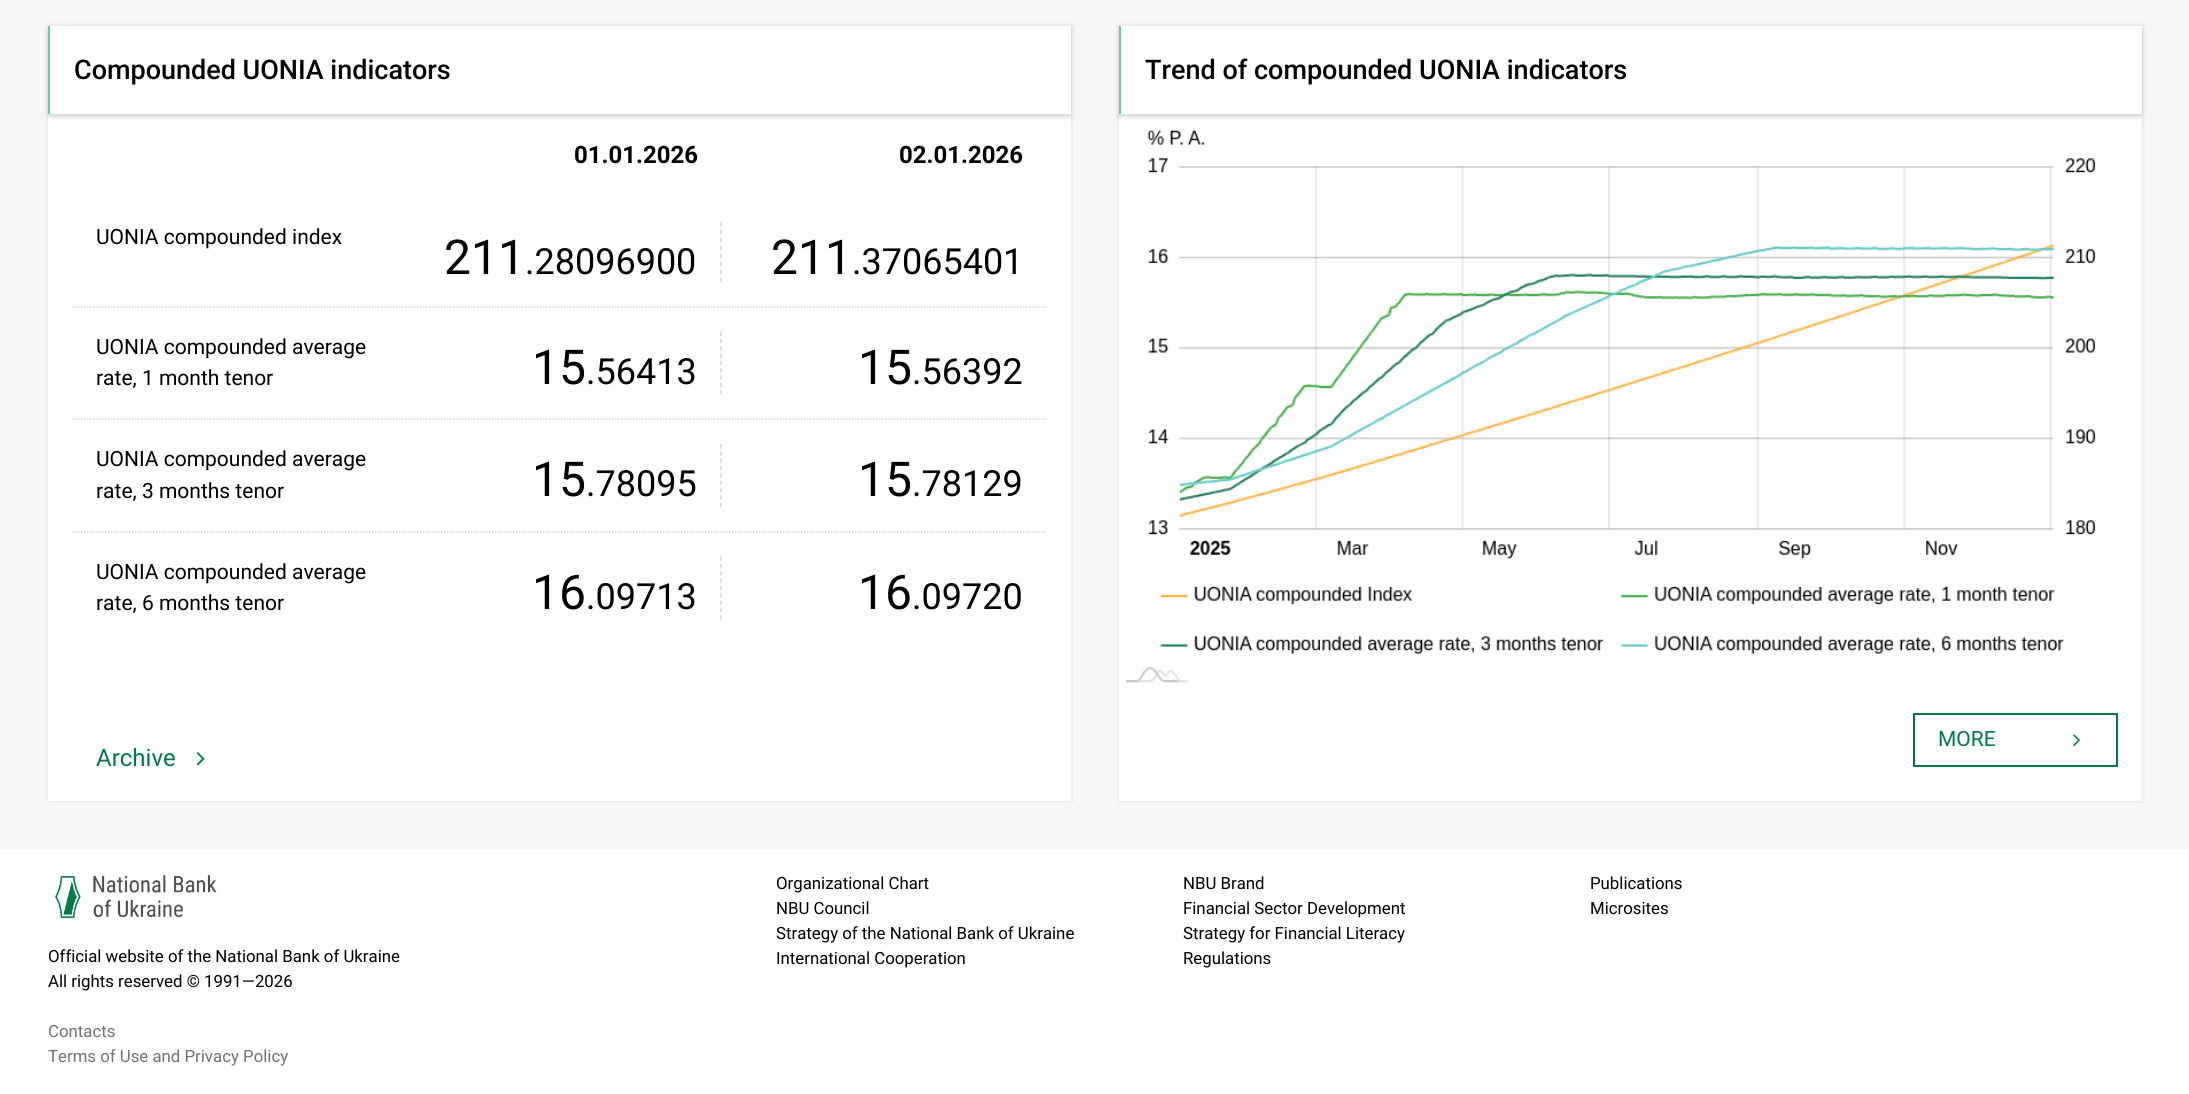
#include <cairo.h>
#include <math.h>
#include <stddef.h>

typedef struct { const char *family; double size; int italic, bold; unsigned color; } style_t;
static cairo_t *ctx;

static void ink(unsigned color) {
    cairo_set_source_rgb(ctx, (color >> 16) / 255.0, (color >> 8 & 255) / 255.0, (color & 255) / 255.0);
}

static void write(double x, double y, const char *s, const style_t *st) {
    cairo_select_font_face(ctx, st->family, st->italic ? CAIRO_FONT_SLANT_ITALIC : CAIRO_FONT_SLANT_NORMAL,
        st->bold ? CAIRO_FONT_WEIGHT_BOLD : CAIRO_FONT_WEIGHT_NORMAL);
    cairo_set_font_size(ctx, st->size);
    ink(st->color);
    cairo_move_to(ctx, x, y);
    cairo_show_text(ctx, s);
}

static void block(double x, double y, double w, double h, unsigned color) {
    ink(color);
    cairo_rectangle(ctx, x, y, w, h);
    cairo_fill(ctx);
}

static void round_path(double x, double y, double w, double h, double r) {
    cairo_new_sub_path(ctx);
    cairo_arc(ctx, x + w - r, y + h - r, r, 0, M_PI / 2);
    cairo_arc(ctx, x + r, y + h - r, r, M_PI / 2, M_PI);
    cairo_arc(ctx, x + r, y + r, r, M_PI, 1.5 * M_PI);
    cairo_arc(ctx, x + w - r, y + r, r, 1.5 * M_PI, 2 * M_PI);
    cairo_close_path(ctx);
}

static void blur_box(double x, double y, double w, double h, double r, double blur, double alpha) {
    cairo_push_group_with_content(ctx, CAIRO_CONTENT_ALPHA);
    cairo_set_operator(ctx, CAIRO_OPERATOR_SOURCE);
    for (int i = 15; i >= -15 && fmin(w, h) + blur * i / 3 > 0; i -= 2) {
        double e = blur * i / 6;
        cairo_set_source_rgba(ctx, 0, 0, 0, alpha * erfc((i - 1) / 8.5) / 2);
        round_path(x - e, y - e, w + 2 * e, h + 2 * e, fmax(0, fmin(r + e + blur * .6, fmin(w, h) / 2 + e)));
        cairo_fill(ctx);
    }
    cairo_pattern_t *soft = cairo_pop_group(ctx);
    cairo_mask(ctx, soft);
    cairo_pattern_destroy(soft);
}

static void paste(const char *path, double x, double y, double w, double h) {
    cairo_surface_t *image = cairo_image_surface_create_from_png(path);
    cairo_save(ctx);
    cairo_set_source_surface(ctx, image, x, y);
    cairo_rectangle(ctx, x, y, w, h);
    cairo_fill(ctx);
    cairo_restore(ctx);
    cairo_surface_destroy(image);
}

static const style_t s1 = {"Roboto Medium", 27, 0, 0, 0x000000};
static const style_t s2 = {"Roboto", 24, 0, 1, 0x000000};
static const style_t s3 = {"Roboto", 21, 0, 0, 0x000000};
static const style_t s4 = {"Roboto", 48, 0, 0, 0x000000};
static const style_t s5 = {"Roboto", 36, 0, 0, 0x000000};
static const style_t s6 = {"Roboto", 24, 0, 0, 0x007b47};
static const style_t s7 = {"Roboto", 21, 0, 0, 0x007b47};
static const style_t s8 = {"Roboto", 16.8, 0, 0, 0x000000};
static const style_t s9 = {"Roboto", 16.8, 0, 0, 0x727272};

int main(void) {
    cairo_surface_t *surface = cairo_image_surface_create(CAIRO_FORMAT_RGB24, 2189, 1094);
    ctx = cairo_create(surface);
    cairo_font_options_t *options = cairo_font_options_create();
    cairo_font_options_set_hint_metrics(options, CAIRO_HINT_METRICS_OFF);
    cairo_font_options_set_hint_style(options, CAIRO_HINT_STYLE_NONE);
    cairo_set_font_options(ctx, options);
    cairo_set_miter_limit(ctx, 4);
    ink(0xf9f7f5);
    cairo_paint(ctx);
    ink(0x000000);
    blur_box(48, 26, 1023, 775, 0, 2, 0.1);
    block(48, 26, 1023, 775, 0xffffff);
    cairo_save(ctx);
    cairo_set_fill_rule(ctx, CAIRO_FILL_RULE_EVEN_ODD);
    cairo_new_path(ctx);
    cairo_move_to(ctx, 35, 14);
    cairo_line_to(ctx, 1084, 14);
    cairo_line_to(ctx, 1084, 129);
    cairo_line_to(ctx, 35, 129);
    cairo_close_path(ctx);
    cairo_move_to(ctx, 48, 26);
    cairo_line_to(ctx, 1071, 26);
    cairo_line_to(ctx, 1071, 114);
    cairo_line_to(ctx, 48, 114);
    cairo_close_path(ctx);
    cairo_clip(ctx);
    ink(0x000000);
    blur_box(48, 27, 1023, 89, 0, 4, 0.08);
    cairo_restore(ctx);
    cairo_save(ctx);
    cairo_set_fill_rule(ctx, CAIRO_FILL_RULE_EVEN_ODD);
    cairo_new_path(ctx);
    cairo_move_to(ctx, 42, 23);
    cairo_line_to(ctx, 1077, 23);
    cairo_line_to(ctx, 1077, 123);
    cairo_line_to(ctx, 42, 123);
    cairo_close_path(ctx);
    cairo_move_to(ctx, 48, 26);
    cairo_line_to(ctx, 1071, 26);
    cairo_line_to(ctx, 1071, 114);
    cairo_line_to(ctx, 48, 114);
    cairo_close_path(ctx);
    cairo_clip(ctx);
    ink(0x000000);
    blur_box(48, 29, 1023, 88, 0, 1.5, 0.1);
    cairo_restore(ctx);
    block(48, 26, 2, 88, 0x6acb9a);
    write(74, 79, "Compounded UONIA indicators", &s1);
    write(574, 163, "01.01.2026", &s2);
    write(899, 163, "02.01.2026", &s2);
    cairo_new_path(ctx);
    cairo_move_to(ctx, 72, 307);
    cairo_line_to(ctx, 1047, 307);
    ink(0xd3d3d3);
    cairo_set_line_width(ctx, 1.5);
    cairo_set_dash(ctx, (double[]){1.5, 1.5}, 2, 0);
    cairo_stroke(ctx);
    write(96, 244, "UONIA compounded indeх", &s3);
    cairo_new_path(ctx);
    cairo_move_to(ctx, 721, 222);
    cairo_line_to(ctx, 721, 282);
    ink(0xd3d3d3);
    cairo_set_dash(ctx, (double[]){4.5, 3.44}, 2, 0);
    cairo_stroke(ctx);
    write(444, 274, "211", &s4);
    write(525, 274, ".28096900", &s5);
    write(771, 274, "211", &s4);
    write(852, 274, ".37065401", &s5);
    cairo_new_path(ctx);
    cairo_move_to(ctx, 72, 419);
    cairo_line_to(ctx, 1047, 419);
    ink(0xd3d3d3);
    cairo_set_dash(ctx, (double[]){1.5, 1.5}, 2, 0);
    cairo_stroke(ctx);
    write(96, 354, "UONIA compounded average", &s3);
    write(96, 385, "rate, 1 month tenor", &s3);
    cairo_new_path(ctx);
    cairo_move_to(ctx, 721, 331.5);
    cairo_line_to(ctx, 721, 394.5);
    ink(0xd3d3d3);
    cairo_set_dash(ctx, (double[]){4.5, 2.82}, 2, 0);
    cairo_stroke(ctx);
    write(532, 384, "15", &s4);
    write(586, 384, ".56413", &s5);
    write(858, 384, "15", &s4);
    write(912, 384, ".56392", &s5);
    cairo_new_path(ctx);
    cairo_move_to(ctx, 72, 532);
    cairo_line_to(ctx, 1047, 532);
    ink(0xd3d3d3);
    cairo_set_dash(ctx, (double[]){1.5, 1.5}, 2, 0);
    cairo_stroke(ctx);
    write(96, 466, "UONIA compounded average", &s3);
    write(96, 498, "rate, 3 months tenor", &s3);
    cairo_new_path(ctx);
    cairo_move_to(ctx, 721, 444);
    cairo_line_to(ctx, 721, 507);
    ink(0xd3d3d3);
    cairo_set_dash(ctx, (double[]){4.5, 2.82}, 2, 0);
    cairo_stroke(ctx);
    write(532, 496, "15", &s4);
    write(586, 496, ".78095", &s5);
    write(858, 496, "15", &s4);
    write(912, 496, ".78129", &s5);
    write(96, 579, "UONIA compounded average", &s3);
    write(96, 610, "rate, 6 months tenor", &s3);
    cairo_new_path(ctx);
    cairo_move_to(ctx, 721, 556.5);
    cairo_line_to(ctx, 721, 619.5);
    ink(0xd3d3d3);
    cairo_stroke(ctx);
    write(532, 609, "16", &s4);
    write(586, 609, ".09713", &s5);
    write(858, 609, "16", &s4);
    write(912, 609, ".09720", &s5);
    write(96, 766, "Archive", &s6);
    paste("pic1.png", 196, 752, 9, 14);
    ink(0x000000);
    blur_box(1119, 26, 1023, 775, 0, 2, 0.1);
    block(1119, 26, 1023, 775, 0xffffff);
    cairo_save(ctx);
    cairo_set_fill_rule(ctx, CAIRO_FILL_RULE_EVEN_ODD);
    cairo_new_path(ctx);
    cairo_move_to(ctx, 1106, 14);
    cairo_line_to(ctx, 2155, 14);
    cairo_line_to(ctx, 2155, 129);
    cairo_line_to(ctx, 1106, 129);
    cairo_close_path(ctx);
    cairo_move_to(ctx, 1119, 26);
    cairo_line_to(ctx, 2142, 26);
    cairo_line_to(ctx, 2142, 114);
    cairo_line_to(ctx, 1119, 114);
    cairo_close_path(ctx);
    cairo_clip(ctx);
    ink(0x000000);
    blur_box(1119, 27, 1023, 89, 0, 4, 0.08);
    cairo_restore(ctx);
    cairo_save(ctx);
    cairo_set_fill_rule(ctx, CAIRO_FILL_RULE_EVEN_ODD);
    cairo_new_path(ctx);
    cairo_move_to(ctx, 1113, 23);
    cairo_line_to(ctx, 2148, 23);
    cairo_line_to(ctx, 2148, 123);
    cairo_line_to(ctx, 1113, 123);
    cairo_close_path(ctx);
    cairo_move_to(ctx, 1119, 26);
    cairo_line_to(ctx, 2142, 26);
    cairo_line_to(ctx, 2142, 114);
    cairo_line_to(ctx, 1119, 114);
    cairo_close_path(ctx);
    cairo_clip(ctx);
    ink(0x000000);
    blur_box(1119, 29, 1023, 88, 0, 1.5, 0.1);
    cairo_restore(ctx);
    block(1119, 26, 2, 88, 0x6acb9a);
    write(1145, 79, "Trend of compounded UONIA indicators", &s1);
    paste("pic2.png", 1125, 130, 971, 553);
    cairo_rectangle(ctx, 1914, 714, 203, 52);
    ink(0x007b47);
    cairo_set_line_width(ctx, 2);
    cairo_set_dash(ctx, NULL, 0, 0);
    cairo_stroke(ctx);
    write(1938, 746, "MORE", &s7);
    paste("pic3.png", 2073, 734, 7, 12);
    block(0, 849, 2189, 245, 0xffffff);
    write(776, 889, "Organizational Chart", &s8);
    write(1183, 889, "NBU Brand", &s8);
    write(1590, 889, "Publications", &s8);
    write(776, 914, "NBU Council", &s8);
    write(1183, 914, "Financial Sector Development", &s8);
    write(1590, 914, "Microsites", &s8);
    write(776, 939, "Strategy of the National Bank of Ukraine", &s8);
    write(1183, 939, "Strategy for Financial Literacy", &s8);
    write(776, 964, "International Cooperation", &s8);
    write(1183, 964, "Regulations", &s8);
    paste("pic4.png", 55, 875, 162, 44);
    write(48, 962, "Official website of the National Bank of Ukraine", &s8);
    write(48, 987, "All rights reserved © 1991—2026", &s8);
    write(48, 1037, "Contacts", &s9);
    write(48, 1062, "Terms of Use and Privacy Policy", &s9);
    cairo_surface_write_to_png(surface, "screenshot.png");
    cairo_font_options_destroy(options);
    cairo_destroy(ctx);
    cairo_surface_destroy(surface);
    return 0;
}
